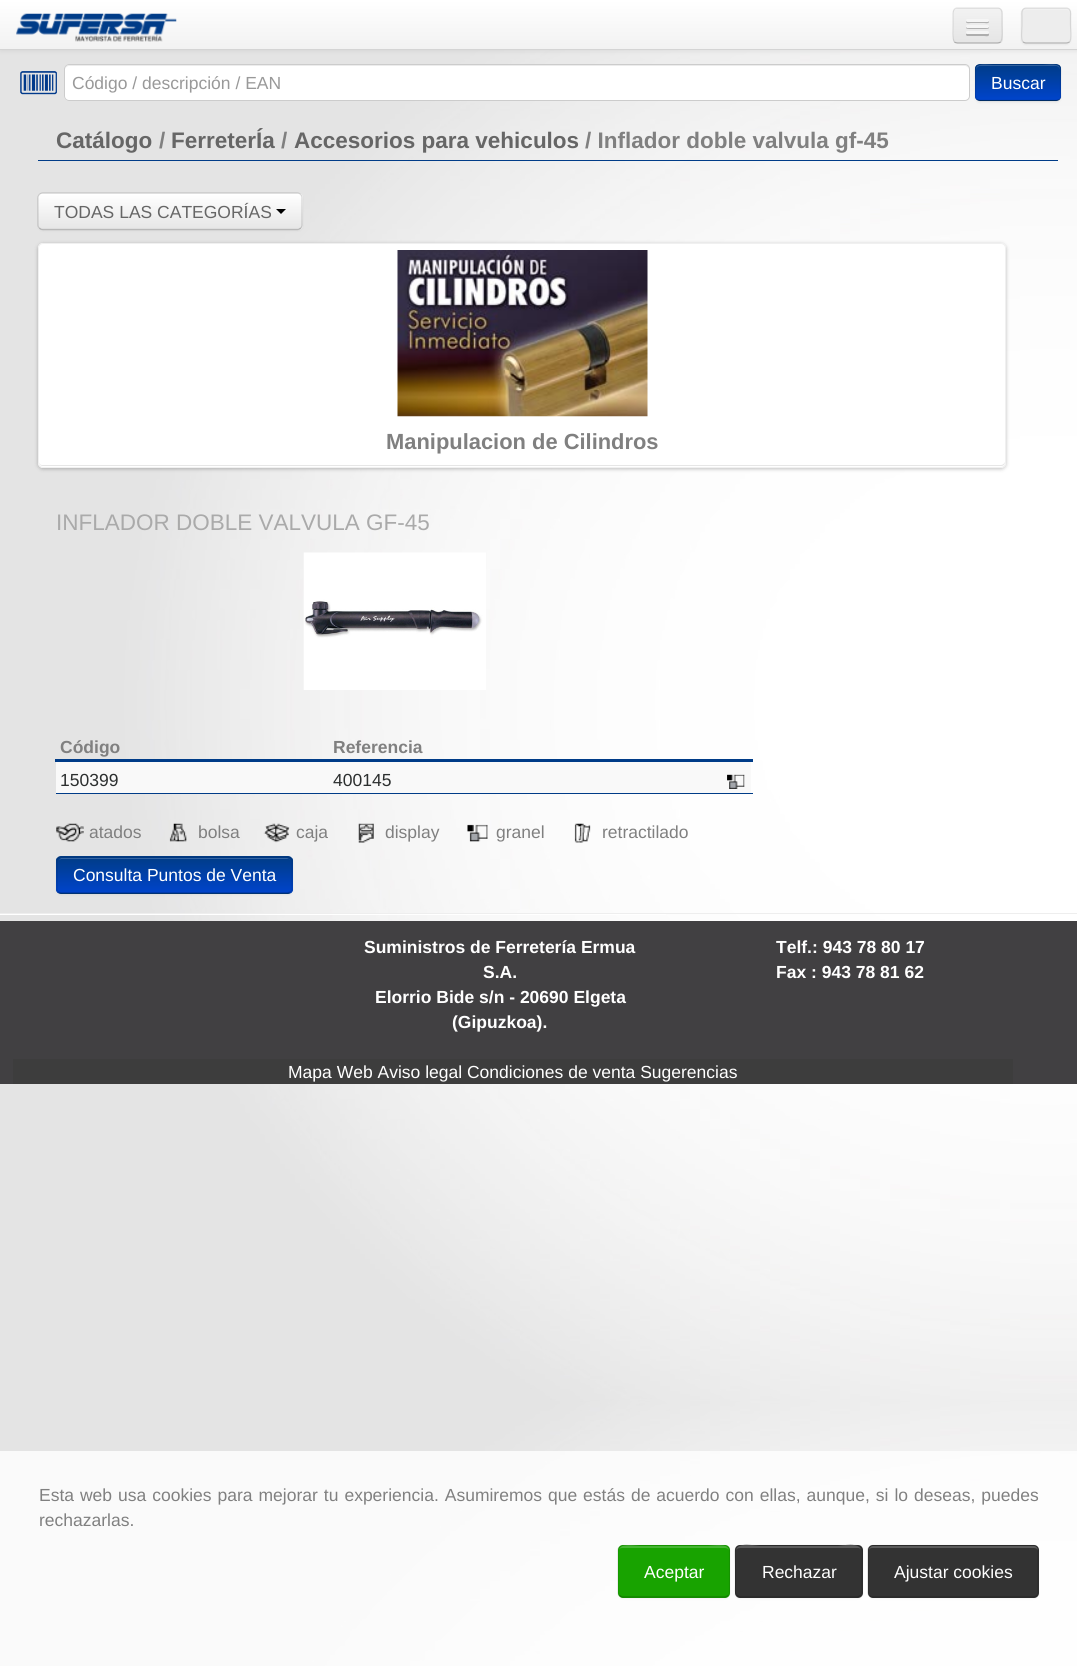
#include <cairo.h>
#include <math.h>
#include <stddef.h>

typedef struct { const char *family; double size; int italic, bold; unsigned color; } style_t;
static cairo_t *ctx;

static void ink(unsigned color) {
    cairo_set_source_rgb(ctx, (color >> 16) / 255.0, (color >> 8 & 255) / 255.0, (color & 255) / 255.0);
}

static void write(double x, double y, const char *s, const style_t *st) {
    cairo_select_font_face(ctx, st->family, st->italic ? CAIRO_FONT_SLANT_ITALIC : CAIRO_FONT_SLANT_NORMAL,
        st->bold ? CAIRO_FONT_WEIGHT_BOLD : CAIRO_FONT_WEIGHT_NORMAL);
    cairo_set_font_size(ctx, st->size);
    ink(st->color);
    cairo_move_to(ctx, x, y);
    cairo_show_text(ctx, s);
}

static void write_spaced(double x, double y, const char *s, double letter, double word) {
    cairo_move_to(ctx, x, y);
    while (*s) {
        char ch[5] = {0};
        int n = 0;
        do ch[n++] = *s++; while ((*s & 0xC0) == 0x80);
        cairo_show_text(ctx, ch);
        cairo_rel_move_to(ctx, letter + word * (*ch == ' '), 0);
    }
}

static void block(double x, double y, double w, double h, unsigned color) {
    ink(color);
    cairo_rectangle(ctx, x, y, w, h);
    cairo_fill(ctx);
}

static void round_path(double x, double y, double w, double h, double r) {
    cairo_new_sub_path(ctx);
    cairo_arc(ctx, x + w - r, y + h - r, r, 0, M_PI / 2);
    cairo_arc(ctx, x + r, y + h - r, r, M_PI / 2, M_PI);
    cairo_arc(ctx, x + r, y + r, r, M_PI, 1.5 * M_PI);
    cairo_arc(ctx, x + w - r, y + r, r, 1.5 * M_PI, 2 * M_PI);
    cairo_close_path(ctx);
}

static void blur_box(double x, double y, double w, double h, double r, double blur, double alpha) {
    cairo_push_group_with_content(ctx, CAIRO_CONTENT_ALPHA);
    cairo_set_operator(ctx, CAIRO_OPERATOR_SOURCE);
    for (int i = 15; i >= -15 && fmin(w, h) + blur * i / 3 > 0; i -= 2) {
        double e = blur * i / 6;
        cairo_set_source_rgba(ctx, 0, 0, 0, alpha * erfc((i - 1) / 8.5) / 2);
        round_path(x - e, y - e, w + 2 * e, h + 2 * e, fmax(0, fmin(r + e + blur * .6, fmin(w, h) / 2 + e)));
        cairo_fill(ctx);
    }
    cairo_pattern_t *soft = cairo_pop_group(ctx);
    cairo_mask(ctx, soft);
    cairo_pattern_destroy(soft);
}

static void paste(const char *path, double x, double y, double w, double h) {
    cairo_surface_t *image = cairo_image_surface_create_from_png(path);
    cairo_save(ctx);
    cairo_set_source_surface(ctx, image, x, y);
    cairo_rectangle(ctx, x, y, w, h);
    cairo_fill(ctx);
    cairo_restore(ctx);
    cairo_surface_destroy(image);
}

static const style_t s1 = {"Liberation Sans", 17.5, 0, 0, 0x999999};
static const style_t s2 = {"Liberation Sans", 17.5, 0, 0, 0xffffff};
static const style_t s3 = {"Liberation Sans", 22.5, 0, 1, 0x666666};
static const style_t s4 = {"Liberation Sans", 22.5, 0, 1, 0x808080};
static const style_t s5 = {"Liberation Sans", 17.5, 0, 0, 0x666666};
static const style_t s6 = {"Liberation Sans", 21.9, 0, 1, 0x808080};
static const style_t s7 = {"Liberation Sans", 22.5, 0, 0, 0xaaaaaa};
static const style_t s8 = {"Liberation Sans", 17.5, 0, 1, 0x808080};
static const style_t s9 = {"Liberation Sans", 17.5, 0, 0, 0x2c2f2f};
static const style_t s10 = {"Liberation Sans", 17.5, 0, 0, 0x808080};
static const style_t s11 = {"Liberation Sans", 17.5, 0, 1, 0xffffff};

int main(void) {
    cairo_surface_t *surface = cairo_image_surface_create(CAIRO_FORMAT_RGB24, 1077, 1666);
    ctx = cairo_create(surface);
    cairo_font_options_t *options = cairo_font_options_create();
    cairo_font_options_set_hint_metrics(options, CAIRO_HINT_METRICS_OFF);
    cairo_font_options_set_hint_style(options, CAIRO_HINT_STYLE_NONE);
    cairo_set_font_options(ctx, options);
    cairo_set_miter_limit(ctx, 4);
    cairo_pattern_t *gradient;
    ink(0xffffff);
    cairo_paint(ctx);
    paste("pic1.png", 0, 50, 1077, 1616);
    ink(0x000000);
    blur_box(0, 1, 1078, 50, 0, 2.5, 0.07);
    gradient = cairo_pattern_create_linear(539, 0, 539, 49);
    cairo_pattern_add_color_stop_rgba(gradient, 0, 1, 1, 1, 1);
    cairo_pattern_add_color_stop_rgba(gradient, 1, 0.949, 0.949, 0.949, 1);
    cairo_set_source(ctx, gradient);
    cairo_pattern_destroy(gradient);
    cairo_rectangle(ctx, 0, 0, 1077, 49);
    cairo_fill(ctx);
    block(0, 49, 1077, 1, 0xd4d4d4);
    ink(0xededed);
    round_path(953, 8, 50, 36, 5);
    cairo_fill(ctx);
    cairo_save(ctx);
    round_path(953, 8, 50, 36, 5);
    cairo_clip(ctx);
    gradient = cairo_pattern_create_linear(978, 9, 978, 43);
    cairo_pattern_add_color_stop_rgba(gradient, 0, 0.949, 0.949, 0.949, 1);
    cairo_pattern_add_color_stop_rgba(gradient, 1, 0.898, 0.898, 0.898, 1);
    cairo_set_source(ctx, gradient);
    cairo_pattern_destroy(gradient);
    cairo_rectangle(ctx, 953, 9, 50, 34);
    cairo_fill(ctx);
    cairo_restore(ctx);
    cairo_new_path(ctx);
    cairo_move_to(ctx, 1000.5, 42);
    cairo_curve_to(ctx, 1000, 42.5, 998.5, 43, 997.5, 43);
    cairo_line_to(ctx, 957.5, 43);
    cairo_curve_to(ctx, 956.5, 43, 955, 42.5, 954.5, 42);
    cairo_set_source_rgba(ctx, 0, 0, 0, 0.25);
    cairo_set_line_width(ctx, 1.2);
    cairo_stroke(ctx);
    cairo_new_path(ctx);
    cairo_move_to(ctx, 954.5, 42);
    cairo_curve_to(ctx, 952, 39, 953, 29, 953, 25.5);
    cairo_line_to(ctx, 953, 17);
    cairo_curve_to(ctx, 953, 13.5, 952.5, 9, 956.5, 8);
    cairo_line_to(ctx, 998.5, 8);
    cairo_curve_to(ctx, 1002.5, 9, 1002, 13.5, 1002, 17);
    cairo_line_to(ctx, 1002, 25.5);
    cairo_curve_to(ctx, 1002, 29, 1003, 39, 1000.5, 42);
    cairo_set_source_rgba(ctx, 0, 0, 0, 0.1);
    cairo_stroke(ctx);
    ink(0xb2b2b2);
    cairo_new_path(ctx);
    cairo_move_to(ctx, 966.5, 20.5);
    cairo_line_to(ctx, 966, 22);
    cairo_curve_to(ctx, 966.5, 24, 970, 23, 971, 23);
    cairo_line_to(ctx, 984, 23);
    cairo_curve_to(ctx, 985, 23, 988.5, 24, 989, 22);
    cairo_line_to(ctx, 988.5, 20.5);
    cairo_curve_to(ctx, 988.5, 21, 988, 21, 987.5, 21);
    cairo_line_to(ctx, 967.5, 21);
    cairo_curve_to(ctx, 967, 21, 966.5, 21, 966.5, 20.5);
    cairo_close_path(ctx);
    cairo_fill(ctx);
    ink(0xf5f5f5);
    round_path(966, 19, 23, 3, 1.5);
    cairo_fill(ctx);
    ink(0xb0b0b0);
    cairo_new_path(ctx);
    cairo_move_to(ctx, 966.5, 26.5);
    cairo_curve_to(ctx, 964, 29.5, 970.5, 29, 971, 29);
    cairo_line_to(ctx, 984, 29);
    cairo_curve_to(ctx, 984.5, 29, 991, 29.5, 988.5, 26.5);
    cairo_curve_to(ctx, 988.5, 27, 988, 27.5, 987.5, 27.5);
    cairo_line_to(ctx, 967.5, 27.5);
    cairo_curve_to(ctx, 967, 27.5, 966.5, 27, 966.5, 26.5);
    cairo_close_path(ctx);
    cairo_fill(ctx);
    ink(0xf5f5f5);
    round_path(966, 25, 23, 3, 1.5);
    cairo_fill(ctx);
    ink(0xaeaeae);
    cairo_new_path(ctx);
    cairo_move_to(ctx, 966.5, 33.5);
    cairo_curve_to(ctx, 965.5, 34, 966, 35.5, 967, 36);
    cairo_line_to(ctx, 984, 36);
    cairo_curve_to(ctx, 985, 36, 988.5, 37, 989, 35);
    cairo_curve_to(ctx, 989, 34.5, 989, 33.5, 988.5, 33.5);
    cairo_curve_to(ctx, 987.5, 34, 967.5, 34, 966.5, 33.5);
    cairo_close_path(ctx);
    cairo_fill(ctx);
    ink(0xf5f5f5);
    round_path(966, 31, 23, 3, 1.5);
    cairo_fill(ctx);
    ink(0x000000);
    blur_box(1021, 9, 50, 36, 5, 1, 0.05);
    ink(0xededed);
    round_path(1021, 8, 50, 36, 5);
    cairo_fill(ctx);
    ink(0xf1f1f1);
    cairo_new_path(ctx);
    cairo_move_to(ctx, 1026, 10);
    cairo_line_to(ctx, 1066, 10);
    cairo_curve_to(ctx, 1068, 10, 1070, 12, 1070, 14);
    cairo_line_to(ctx, 1070, 13);
    cairo_curve_to(ctx, 1070, 11, 1068, 9, 1066, 9);
    cairo_line_to(ctx, 1027, 9);
    cairo_curve_to(ctx, 1026, 9, 1024, 10, 1024, 11);
    cairo_close_path(ctx);
    cairo_fill(ctx);
    cairo_new_path(ctx);
    cairo_move_to(ctx, 1069.5, 42);
    cairo_curve_to(ctx, 1068.5, 42.5, 1067.5, 43, 1066, 43);
    cairo_line_to(ctx, 1026, 43);
    cairo_curve_to(ctx, 1025, 43, 1024, 42.5, 1023, 42);
    ink(0xb2b2b2);
    cairo_stroke(ctx);
    cairo_new_path(ctx);
    cairo_move_to(ctx, 1023, 42);
    cairo_curve_to(ctx, 1020.5, 39, 1022, 29, 1022, 25.5);
    cairo_line_to(ctx, 1022, 17);
    cairo_curve_to(ctx, 1022, 13.5, 1021, 9, 1025.5, 8);
    cairo_line_to(ctx, 1067, 8);
    cairo_curve_to(ctx, 1071.5, 9, 1070.5, 13.5, 1070.5, 17);
    cairo_line_to(ctx, 1070.5, 25.5);
    cairo_curve_to(ctx, 1070.5, 29, 1072, 39, 1069.5, 42);
    cairo_set_source_rgba(ctx, 0, 0, 0, 0.1);
    cairo_stroke(ctx);
    paste("pic2.png", 16, 13, 161, 29);
    paste("pic3.png", 20, 71, 37, 24);
    ink(0xffffff);
    round_path(64, 64, 906, 37, 5);
    cairo_fill(ctx);
    ink(0xececec);
    cairo_new_path(ctx);
    cairo_move_to(ctx, 69, 66);
    cairo_line_to(ctx, 965, 66);
    cairo_curve_to(ctx, 967, 66, 969, 68, 969, 70);
    cairo_curve_to(ctx, 969, 67, 968, 65, 965, 65);
    cairo_line_to(ctx, 69, 65);
    cairo_curve_to(ctx, 66, 65, 65, 67, 65, 70);
    cairo_curve_to(ctx, 65, 68, 67, 66, 69, 66);
    cairo_close_path(ctx);
    cairo_fill(ctx);
    round_path(64.5, 64.5, 905, 36, 4.5);
    ink(0xcccccc);
    cairo_set_line_width(ctx, 1);
    cairo_stroke(ctx);
    write(72, 89, "Código / descripción / EAN", &s1);
    ink(0x000000);
    blur_box(975, 65, 86, 38, 5, 1, 0.05);
    ink(0x003c88);
    round_path(975, 64, 86, 37, 5);
    cairo_fill(ctx);
    cairo_save(ctx);
    round_path(975, 64, 86, 37, 5);
    cairo_clip(ctx);
    gradient = cairo_pattern_create_linear(1018, 65, 1018, 100);
    cairo_pattern_add_color_stop_rgba(gradient, 0, 0, 0.235, 0.533, 1);
    cairo_pattern_add_color_stop_rgba(gradient, 1, 0, 0.267, 0.8, 1);
    cairo_set_source(ctx, gradient);
    cairo_pattern_destroy(gradient);
    cairo_rectangle(ctx, 975, 65, 86, 35);
    cairo_fill(ctx);
    cairo_restore(ctx);
    cairo_set_source_rgba(ctx, 1, 1, 1, 0.2);
    cairo_new_path(ctx);
    cairo_move_to(ctx, 980, 66);
    cairo_line_to(ctx, 1056, 66);
    cairo_curve_to(ctx, 1058, 66, 1060, 68, 1060, 70);
    cairo_curve_to(ctx, 1060, 62, 1048, 65, 1043, 65);
    cairo_line_to(ctx, 993, 65);
    cairo_curve_to(ctx, 988, 65, 976, 62, 976, 70);
    cairo_curve_to(ctx, 976, 68, 978, 66, 980, 66);
    cairo_close_path(ctx);
    cairo_fill(ctx);
    cairo_new_path(ctx);
    cairo_move_to(ctx, 1059.5, 99.5);
    cairo_line_to(ctx, 1056.5, 100.5);
    cairo_line_to(ctx, 979.5, 100.5);
    cairo_line_to(ctx, 977, 99.5);
    cairo_set_source_rgba(ctx, 0, 0, 0, 0.25);
    cairo_set_line_width(ctx, 1.2);
    cairo_stroke(ctx);
    cairo_new_path(ctx);
    cairo_move_to(ctx, 977, 99.5);
    cairo_curve_to(ctx, 975, 97.5, 975.5, 94, 975.5, 91.5);
    cairo_line_to(ctx, 975.5, 82.5);
    cairo_curve_to(ctx, 975.5, 62.5, 972.5, 64.5, 992.5, 64.5);
    cairo_line_to(ctx, 1043.5, 64.5);
    cairo_curve_to(ctx, 1064, 64.5, 1060.5, 62.5, 1060.5, 82.5);
    cairo_line_to(ctx, 1060.5, 91.5);
    cairo_curve_to(ctx, 1060.5, 94, 1061.5, 97.5, 1059.5, 99.5);
    cairo_set_source_rgba(ctx, 0, 0, 0, 0.1);
    cairo_stroke(ctx);
    write(991, 89, "Buscar", &s2);
    block(38, 160, 1020, 1, 0x003c88);
    write(56, 148, "Catálogo", &s3);
    write(159, 148, "/", &s4);
    write(171, 148, "FerreterÍa", &s3);
    write(281, 148, "/", &s4);
    write(294, 148, "Accesorios para vehiculos", &s3);
    write(585, 148, "/ Inflador doble valvula gf-45", &s4);
    ink(0x000000);
    blur_box(38, 194, 265, 37, 5, 1, 0.05);
    ink(0xf5f5f5);
    round_path(38, 193, 265, 37, 5);
    cairo_fill(ctx);
    cairo_save(ctx);
    round_path(38, 193, 265, 37, 5);
    cairo_clip(ctx);
    gradient = cairo_pattern_create_linear(170, 194, 170, 229);
    cairo_pattern_add_color_stop_rgba(gradient, 0, 1, 1, 1, 1);
    cairo_pattern_add_color_stop_rgba(gradient, 1, 0.902, 0.902, 0.902, 1);
    cairo_set_source(ctx, gradient);
    cairo_pattern_destroy(gradient);
    cairo_rectangle(ctx, 38, 194, 265, 35);
    cairo_fill(ctx);
    cairo_restore(ctx);
    cairo_new_path(ctx);
    cairo_move_to(ctx, 300.5, 228);
    cairo_curve_to(ctx, 300, 229, 298.5, 229.5, 297.5, 229.5);
    cairo_line_to(ctx, 42.5, 229.5);
    cairo_curve_to(ctx, 41.5, 229.5, 40, 229, 39.5, 228);
    cairo_set_source_rgba(ctx, 0, 0, 0, 0.25);
    cairo_stroke(ctx);
    cairo_new_path(ctx);
    cairo_move_to(ctx, 39.5, 228);
    cairo_curve_to(ctx, 38.5, 227.5, 38, 226, 38, 225);
    cairo_line_to(ctx, 38, 197.5);
    cairo_curve_to(ctx, 38, 196.5, 38.5, 195, 39.5, 194.5);
    cairo_curve_to(ctx, 40, 193.5, 41.5, 193, 42.5, 193);
    cairo_line_to(ctx, 297.5, 193);
    cairo_curve_to(ctx, 298.5, 193, 300, 193.5, 300.5, 194.5);
    cairo_curve_to(ctx, 301.5, 195, 302, 196.5, 302, 197.5);
    cairo_line_to(ctx, 302, 225);
    cairo_curve_to(ctx, 302, 226, 301.5, 227.5, 300.5, 228);
    cairo_set_source_rgba(ctx, 0, 0, 0, 0.15);
    cairo_stroke(ctx);
    write(54, 218, "TODAS LAS CATEGORÍAS", &s5);
    ink(0x000000);
    cairo_new_path(ctx);
    cairo_move_to(ctx, 276, 209);
    cairo_line_to(ctx, 286, 209);
    cairo_line_to(ctx, 281, 214);
    cairo_close_path(ctx);
    cairo_fill(ctx);
    ink(0x000000);
    blur_box(38, 244, 968, 225, 5, 2, 0.25);
    ink(0xffffff);
    round_path(38, 243, 968, 225, 5);
    cairo_fill(ctx);
    ink(0xe6e6e6);
    cairo_new_path(ctx);
    cairo_move_to(ctx, 39, 461);
    cairo_curve_to(ctx, 39, 464, 40, 466, 43, 466);
    cairo_line_to(ctx, 1001, 466);
    cairo_curve_to(ctx, 1004, 466, 1005, 464, 1005, 461);
    cairo_curve_to(ctx, 1005, 463, 1003, 465, 1001, 465);
    cairo_line_to(ctx, 42, 465);
    cairo_curve_to(ctx, 40, 465, 39, 463, 39, 461);
    cairo_close_path(ctx);
    cairo_fill(ctx);
    round_path(38.5, 243.5, 967, 224, 4.5);
    ink(0xf0f0f0);
    cairo_set_line_width(ctx, 1);
    cairo_stroke(ctx);
    paste("pic4.png", 397, 250, 251, 167);
    write(386, 449, "Manipulacion de Cilindros", &s6);
    write(56, 530, "INFLADOR DOBLE VALVULA GF-45", &s7);
    paste("pic5.png", 303, 552, 183, 138);
    block(55, 759, 698, 3, 0x003c88);
    write(60, 753, "Código", &s8);
    write(333, 753, "Referencia", &s8);
    block(56, 793, 697, 1, 0x003c88);
    block(56, 762, 695, 31, 0xf9f9f9);
    write(60, 786, "150399", &s9);
    write(333, 786, "400145", &s9);
    paste("pic6.png", 727, 774, 18, 15);
    paste("pic7.png", 56, 823, 28, 19);
    write(89, 838, "atados", &s10);
    paste("pic8.png", 169, 823, 18, 19);
    write(198, 838, "bolsa", &s10);
    paste("pic9.png", 263, 823, 27, 20);
    write(296, 838, "caja", &s10);
    paste("pic10.png", 358, 823, 16, 20);
    write(385, 838, "display", &s10);
    paste("pic11.png", 467, 824, 21, 18);
    write(496, 838, "granel", &s10);
    paste("pic12.png", 574, 823, 17, 20);
    write(602, 838, "retractilado", &s10);
    ink(0x000000);
    blur_box(56, 858, 237, 37, 5, 1, 0.05);
    ink(0x003c88);
    round_path(56, 856, 237, 38, 5);
    cairo_fill(ctx);
    cairo_save(ctx);
    round_path(56, 856, 237, 38, 5);
    cairo_clip(ctx);
    gradient = cairo_pattern_create_linear(174, 858, 174, 893);
    cairo_pattern_add_color_stop_rgba(gradient, 0, 0, 0.235, 0.533, 1);
    cairo_pattern_add_color_stop_rgba(gradient, 1, 0, 0.267, 0.8, 1);
    cairo_set_source(ctx, gradient);
    cairo_pattern_destroy(gradient);
    cairo_rectangle(ctx, 56, 858, 237, 35);
    cairo_fill(ctx);
    cairo_restore(ctx);
    ink(0x3363a1);
    cairo_new_path(ctx);
    cairo_move_to(ctx, 61, 859);
    cairo_line_to(ctx, 288, 859);
    cairo_curve_to(ctx, 289, 859, 290, 859, 290, 860);
    cairo_line_to(ctx, 289, 859);
    cairo_line_to(ctx, 287, 858);
    cairo_line_to(ctx, 250, 858);
    cairo_line_to(ctx, 61, 858);
    cairo_line_to(ctx, 59, 860);
    cairo_close_path(ctx);
    cairo_fill(ctx);
    cairo_new_path(ctx);
    cairo_move_to(ctx, 290.5, 892);
    cairo_line_to(ctx, 287.5, 893);
    cairo_line_to(ctx, 61, 893);
    cairo_line_to(ctx, 58, 892);
    cairo_set_source_rgba(ctx, 0, 0, 0, 0.25);
    cairo_set_line_width(ctx, 1.2);
    cairo_stroke(ctx);
    cairo_new_path(ctx);
    cairo_move_to(ctx, 58, 892);
    cairo_curve_to(ctx, 57.5, 891, 57, 890, 57, 889);
    cairo_line_to(ctx, 57, 861);
    cairo_curve_to(ctx, 57, 860, 57.5, 859, 58, 858);
    cairo_curve_to(ctx, 59, 857.5, 60, 857, 61, 857);
    cairo_line_to(ctx, 287.5, 857);
    cairo_curve_to(ctx, 288.5, 857, 290, 857.5, 290.5, 858);
    cairo_curve_to(ctx, 291.5, 859, 292, 860, 292, 861);
    cairo_line_to(ctx, 292, 889);
    cairo_curve_to(ctx, 292, 890, 291.5, 891, 290.5, 892);
    cairo_set_source_rgba(ctx, 0, 0, 0, 0.1);
    cairo_stroke(ctx);
    write(73, 881, "Consulta Puntos de Venta", &s2);
    block(0, 913, 1077, 1, 0xeeeeee);
    block(0, 914, 666, 1, 0xffffff);
    block(0, 921, 1077, 163, 0x414042);
    write(364, 953, "Suministros de Ferretería Ermua", &s11);
    write(483, 978, "S.A.", &s11);
    write(375, 1003, "Elorrio Bide s/n - 20690 Elgeta", &s11);
    write(452, 1028, "(Gipuzkoa).", &s11);
    write(776, 953, "Telf.: 943 78 80 17", &s11);
    write(776, 978, "Fax : 943 78 81 62", &s11);
    block(13, 1059, 1000, 25, 0x3d3d3d);
    write(288, 1078, "Mapa Web Aviso legal Condiciones de venta Sugerencias", &s2);
    cairo_set_source_rgba(ctx, 1, 1, 1, 0.8);
    cairo_rectangle(ctx, 0, 1451, 1077, 215);
    cairo_fill(ctx);
    ink(0x808080);
    write_spaced(39, 1501, "Esta web usa cookies para mejorar tu experiencia. Asumiremos que estás de acuerdo con ellas, aunque, si lo deseas, puedes", 0, 1.1);
    write(39, 1526, "rechazarlas.", &s10);
    ink(0x000000);
    blur_box(618, 1546, 112, 53, 5, 1, 0.05);
    ink(0x18a300);
    round_path(618, 1545, 112, 53, 5);
    cairo_fill(ctx);
    ink(0x46b533);
    cairo_new_path(ctx);
    cairo_move_to(ctx, 622, 1548);
    cairo_line_to(ctx, 725, 1548);
    cairo_curve_to(ctx, 727, 1548, 729, 1549, 729, 1551);
    cairo_curve_to(ctx, 729, 1542, 712, 1546, 708, 1546);
    cairo_line_to(ctx, 640, 1546);
    cairo_curve_to(ctx, 636, 1546, 619, 1542, 619, 1551);
    cairo_curve_to(ctx, 619, 1549, 620, 1548, 622, 1548);
    cairo_close_path(ctx);
    cairo_fill(ctx);
    cairo_new_path(ctx);
    cairo_move_to(ctx, 728, 1595.5);
    cairo_line_to(ctx, 725.5, 1597);
    cairo_line_to(ctx, 622, 1597);
    cairo_line_to(ctx, 619.5, 1595.5);
    cairo_set_source_rgba(ctx, 0, 0, 0, 0.25);
    cairo_stroke(ctx);
    cairo_new_path(ctx);
    cairo_move_to(ctx, 619.5, 1595.5);
    cairo_curve_to(ctx, 618.5, 1595, 618, 1593.5, 618, 1592.5);
    cairo_line_to(ctx, 618, 1550);
    cairo_curve_to(ctx, 618, 1549, 618.5, 1547.5, 619.5, 1547);
    cairo_curve_to(ctx, 620, 1546, 621.5, 1545.5, 622.5, 1545.5);
    cairo_line_to(ctx, 725, 1545.5);
    cairo_curve_to(ctx, 726, 1545.5, 727.5, 1546, 728, 1547);
    cairo_curve_to(ctx, 729, 1547.5, 729.5, 1549, 729.5, 1550);
    cairo_line_to(ctx, 729.5, 1592.5);
    cairo_curve_to(ctx, 729.5, 1593.5, 729, 1595, 728, 1595.5);
    cairo_set_source_rgba(ctx, 0, 0, 0, 0.1);
    cairo_stroke(ctx);
    write(644, 1578, "Aceptar", &s2);
    ink(0x000000);
    blur_box(735, 1546, 128, 53, 5, 1, 0.05);
    ink(0x333333);
    round_path(735, 1545, 128, 53, 5);
    cairo_fill(ctx);
    ink(0x5c5c5c);
    cairo_new_path(ctx);
    cairo_move_to(ctx, 740, 1548);
    cairo_line_to(ctx, 858, 1548);
    cairo_curve_to(ctx, 860, 1548, 861, 1549, 861, 1551);
    cairo_curve_to(ctx, 861, 1541, 840, 1546, 838, 1546);
    cairo_line_to(ctx, 760, 1546);
    cairo_curve_to(ctx, 757, 1546, 736, 1541, 736, 1551);
    cairo_curve_to(ctx, 736, 1549, 738, 1548, 740, 1548);
    cairo_close_path(ctx);
    cairo_fill(ctx);
    cairo_new_path(ctx);
    cairo_move_to(ctx, 860.5, 1595.5);
    cairo_line_to(ctx, 857.5, 1597);
    cairo_line_to(ctx, 739.5, 1597);
    cairo_line_to(ctx, 737, 1595.5);
    cairo_set_source_rgba(ctx, 0, 0, 0, 0.25);
    cairo_stroke(ctx);
    cairo_new_path(ctx);
    cairo_move_to(ctx, 737, 1595.5);
    cairo_curve_to(ctx, 734.5, 1593, 735.5, 1587.5, 735.5, 1585.5);
    cairo_line_to(ctx, 735.5, 1571);
    cairo_curve_to(ctx, 735.5, 1541.5, 730, 1545.5, 759.5, 1545.5);
    cairo_line_to(ctx, 838, 1545.5);
    cairo_curve_to(ctx, 867.5, 1545.5, 862, 1541.5, 862, 1571);
    cairo_line_to(ctx, 862, 1585.5);
    cairo_curve_to(ctx, 862, 1587.5, 863, 1593, 860.5, 1595.5);
    cairo_set_source_rgba(ctx, 0, 0, 0, 0.15);
    cairo_stroke(ctx);
    write(762, 1578, "Rechazar", &s2);
    ink(0x000000);
    blur_box(868, 1546, 171, 53, 5, 1, 0.05);
    ink(0x333333);
    round_path(868, 1545, 171, 53, 5);
    cairo_fill(ctx);
    ink(0x5c5c5c);
    cairo_new_path(ctx);
    cairo_move_to(ctx, 872, 1548);
    cairo_line_to(ctx, 1034, 1548);
    cairo_curve_to(ctx, 1036, 1548, 1038, 1549, 1038, 1551);
    cairo_line_to(ctx, 1038, 1550);
    cairo_curve_to(ctx, 1038, 1548, 1036, 1546, 1034, 1546);
    cairo_line_to(ctx, 873, 1546);
    cairo_curve_to(ctx, 871, 1546, 869, 1548, 869, 1550);
    cairo_line_to(ctx, 869, 1551);
    cairo_curve_to(ctx, 869, 1549, 870, 1548, 872, 1548);
    cairo_close_path(ctx);
    cairo_fill(ctx);
    cairo_new_path(ctx);
    cairo_move_to(ctx, 1037, 1595.5);
    cairo_curve_to(ctx, 1036, 1596.5, 1035, 1597, 1034, 1597);
    cairo_line_to(ctx, 872.5, 1597);
    cairo_curve_to(ctx, 871.5, 1597, 870, 1596.5, 869.5, 1595.5);
    cairo_set_source_rgba(ctx, 0, 0, 0, 0.25);
    cairo_stroke(ctx);
    cairo_new_path(ctx);
    cairo_move_to(ctx, 869.5, 1595.5);
    cairo_curve_to(ctx, 868.5, 1595, 868, 1593.5, 868, 1592.5);
    cairo_line_to(ctx, 868, 1550);
    cairo_curve_to(ctx, 868, 1549, 868.5, 1547.5, 869.5, 1547);
    cairo_curve_to(ctx, 870, 1546, 871.5, 1545.5, 872.5, 1545.5);
    cairo_line_to(ctx, 1034, 1545.5);
    cairo_curve_to(ctx, 1035, 1545.5, 1036, 1546, 1037, 1547);
    cairo_curve_to(ctx, 1037.5, 1547.5, 1038, 1549, 1038, 1550);
    cairo_line_to(ctx, 1038, 1592.5);
    cairo_curve_to(ctx, 1038, 1593.5, 1037.5, 1595, 1037, 1595.5);
    cairo_set_source_rgba(ctx, 0, 0, 0, 0.15);
    cairo_stroke(ctx);
    write(894, 1578, "Ajustar cookies", &s2);
    cairo_surface_write_to_png(surface, "screenshot.png");
    cairo_font_options_destroy(options);
    cairo_destroy(ctx);
    cairo_surface_destroy(surface);
    return 0;
}
